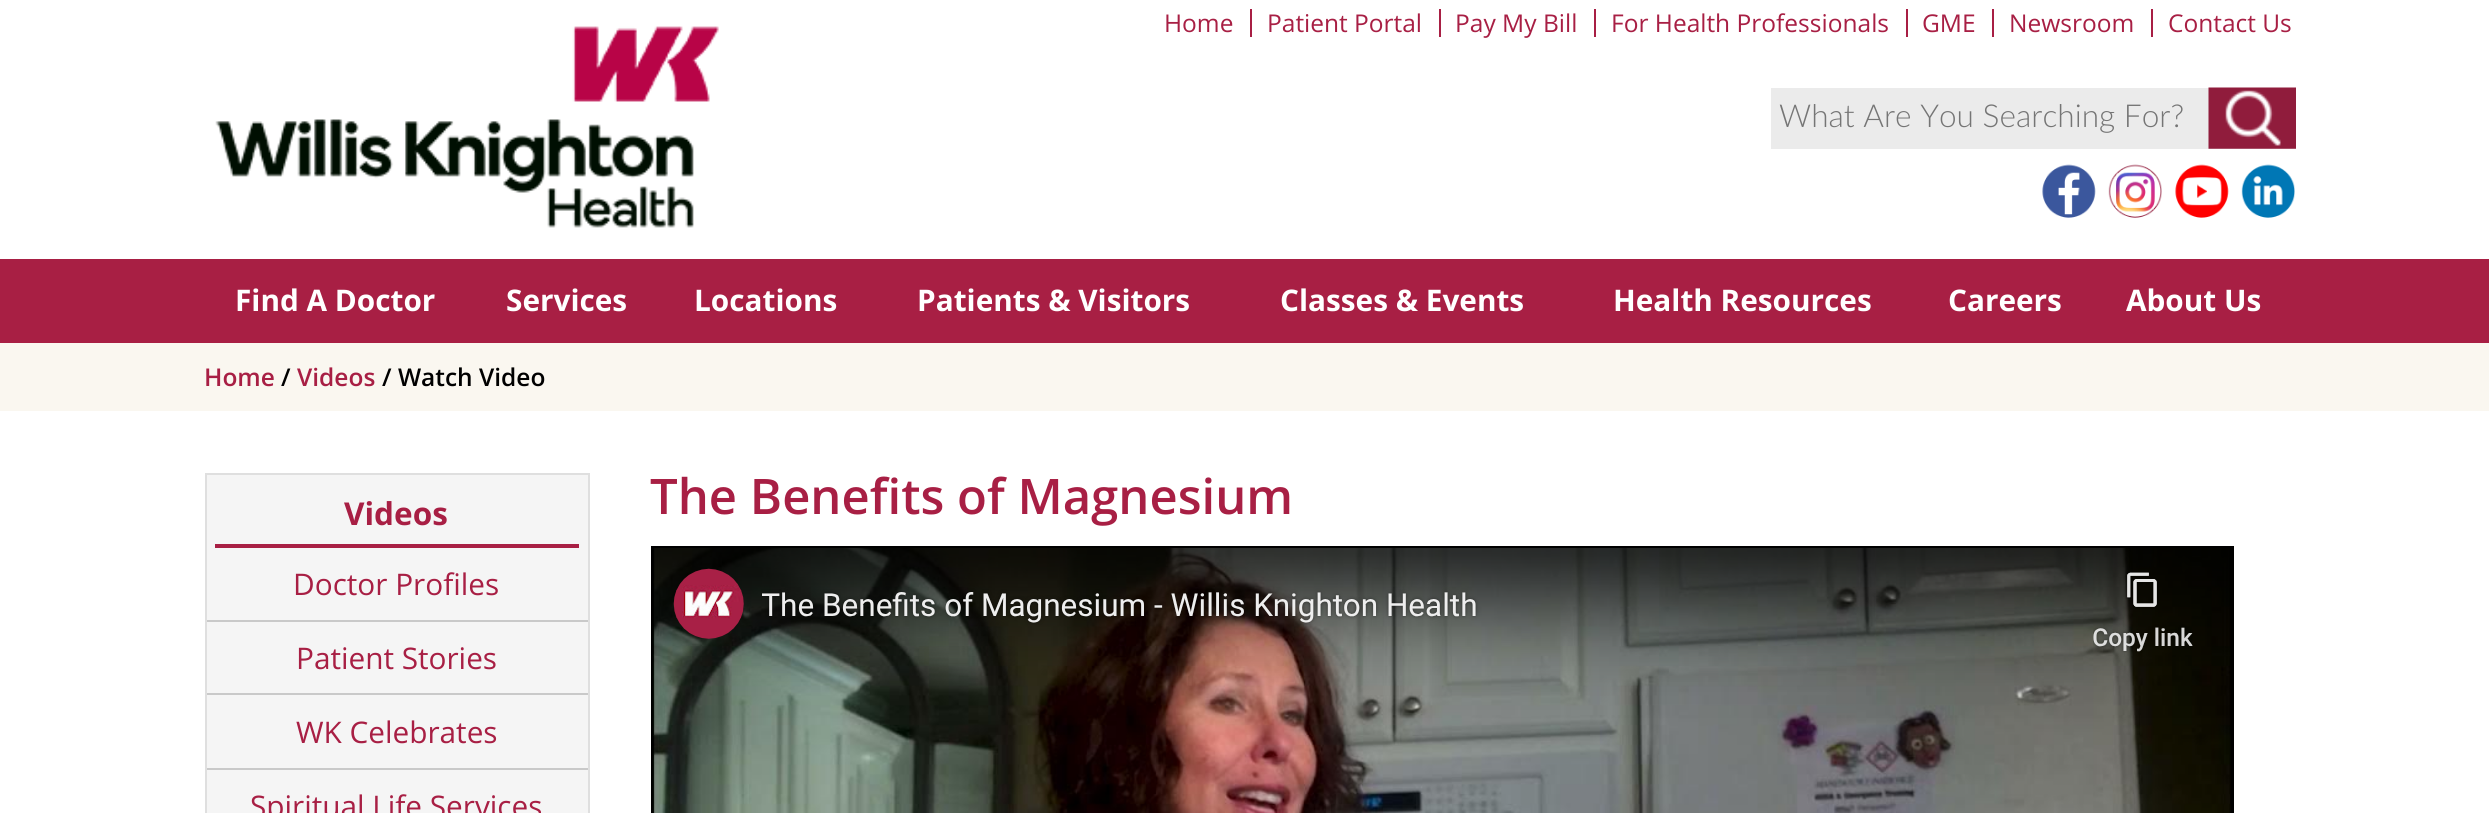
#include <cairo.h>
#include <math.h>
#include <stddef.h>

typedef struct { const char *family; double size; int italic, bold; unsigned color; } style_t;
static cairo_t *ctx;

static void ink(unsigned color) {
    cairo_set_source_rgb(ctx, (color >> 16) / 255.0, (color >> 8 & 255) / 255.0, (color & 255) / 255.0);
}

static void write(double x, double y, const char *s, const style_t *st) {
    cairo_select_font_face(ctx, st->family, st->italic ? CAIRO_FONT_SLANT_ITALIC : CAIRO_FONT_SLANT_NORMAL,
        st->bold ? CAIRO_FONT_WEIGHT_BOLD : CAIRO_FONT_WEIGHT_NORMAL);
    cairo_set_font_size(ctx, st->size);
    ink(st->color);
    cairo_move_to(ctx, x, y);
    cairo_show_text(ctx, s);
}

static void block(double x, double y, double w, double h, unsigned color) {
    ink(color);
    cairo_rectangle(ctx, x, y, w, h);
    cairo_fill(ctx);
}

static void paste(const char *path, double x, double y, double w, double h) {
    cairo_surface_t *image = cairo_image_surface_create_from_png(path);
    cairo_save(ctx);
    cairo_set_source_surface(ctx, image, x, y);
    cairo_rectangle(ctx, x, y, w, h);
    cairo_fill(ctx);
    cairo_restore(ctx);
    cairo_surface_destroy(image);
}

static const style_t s1 = {"Open Sans", 24.5, 0, 0, 0xa81f44};
static const style_t s2 = {"Lato Light", 31.6, 0, 0, 0x757575};
static const style_t s3 = {"Open Sans", 29.75, 0, 1, 0xffffff};
static const style_t s4 = {"Open Sans SemiBold", 24.5, 0, 0, 0xa81f44};
static const style_t s5 = {"Open Sans SemiBold", 24.5, 0, 0, 0x000000};
static const style_t s6 = {"Open Sans", 31.5, 0, 1, 0xa81f44};
static const style_t s7 = {"Open Sans", 29.75, 0, 0, 0xa81f44};
static const style_t s8 = {"Open Sans SemiBold", 49, 0, 0, 0xa81f44};

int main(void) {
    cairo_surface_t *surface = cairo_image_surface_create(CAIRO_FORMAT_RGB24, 2489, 813);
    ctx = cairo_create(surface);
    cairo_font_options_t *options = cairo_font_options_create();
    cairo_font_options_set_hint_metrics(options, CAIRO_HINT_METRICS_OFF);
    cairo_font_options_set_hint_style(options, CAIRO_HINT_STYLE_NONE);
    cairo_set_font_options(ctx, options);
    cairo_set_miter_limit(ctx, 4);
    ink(0xffffff);
    cairo_paint(ctx);
    paste("pic1.png", 215, 26, 504, 202);
    block(1250, 9, 2, 28, 0xa81f44);
    write(1164, 32, "Home", &s1);
    block(1439, 9, 2, 28, 0xa81f44);
    write(1267, 32, "Patient Portal", &s1);
    block(1594, 9, 2, 28, 0xa81f44);
    write(1455, 32, "Pay My Bill", &s1);
    block(1906, 9, 2, 28, 0xa81f44);
    write(1611, 32, "For Health Professionals", &s1);
    block(1992, 9, 2, 28, 0xa81f44);
    write(1922, 32, "GME", &s1);
    block(2151, 9, 2, 28, 0xa81f44);
    write(2009, 32, "Newsroom", &s1);
    write(2168, 32, "Contact Us", &s1);
    block(1771, 88, 525, 61, 0xebebeb);
    write(1779, 127, "What Are You Searching For?", &s2);
    paste("pic2.png", 2208, 87, 88, 62);
    paste("pic3.png", 2042, 164, 54, 54);
    paste("pic4.png", 2108, 164, 54, 54);
    paste("pic5.png", 2175, 164, 54, 54);
    paste("pic6.png", 2241, 164, 54, 54);
    block(0, 259, 2489, 84, 0xa81f44);
    write(235, 311, "Find A Doctor", &s3);
    write(506, 311, "Services", &s3);
    write(694, 311, "Locations", &s3);
    write(917, 311, "Patients & Visitors", &s3);
    write(1280, 311, "Classes & Events", &s3);
    write(1613, 311, "Health Resources", &s3);
    write(1948, 311, "Careers", &s3);
    write(2126, 311, "About Us", &s3);
    block(0, 343, 2489, 68, 0xfaf7f0);
    write(204, 386, "Home", &s4);
    write(281, 386, "/", &s5);
    write(297, 386, "Videos", &s4);
    write(382, 386, "/ Watch Video", &s5);
    block(207, 475, 381, 338, 0xf5f5f5);
    block(205, 473, 385, 2, 0xdfdfdf);
    block(588, 473, 2, 340, 0xdfdfdf);
    block(205, 473, 2, 340, 0xdfdfdf);
    block(215, 544, 364, 4, 0xa81f44);
    write(344, 525, "Videos", &s6);
    block(207, 620, 381, 2, 0xc9c9c9);
    write(293, 595, "Doctor Profiles", &s7);
    block(207, 693, 381, 2, 0xc9c9c9);
    write(296, 669, "Patient Stories", &s7);
    block(207, 768, 381, 2, 0xc9c9c9);
    write(296, 743, "WK Celebrates", &s7);
    write(250, 817, "Spiritual Life Services", &s7);
    write(650, 514, "The Benefits of Magnesium", &s8);
    block(651, 546, 1582, 2, 0x000000);
    block(2230, 546, 4, 267, 0x000000);
    block(651, 546, 2, 267, 0x000000);
    paste("pic7.png", 653, 548, 1578, 265);
    cairo_surface_write_to_png(surface, "screenshot.png");
    cairo_font_options_destroy(options);
    cairo_destroy(ctx);
    cairo_surface_destroy(surface);
    return 0;
}
